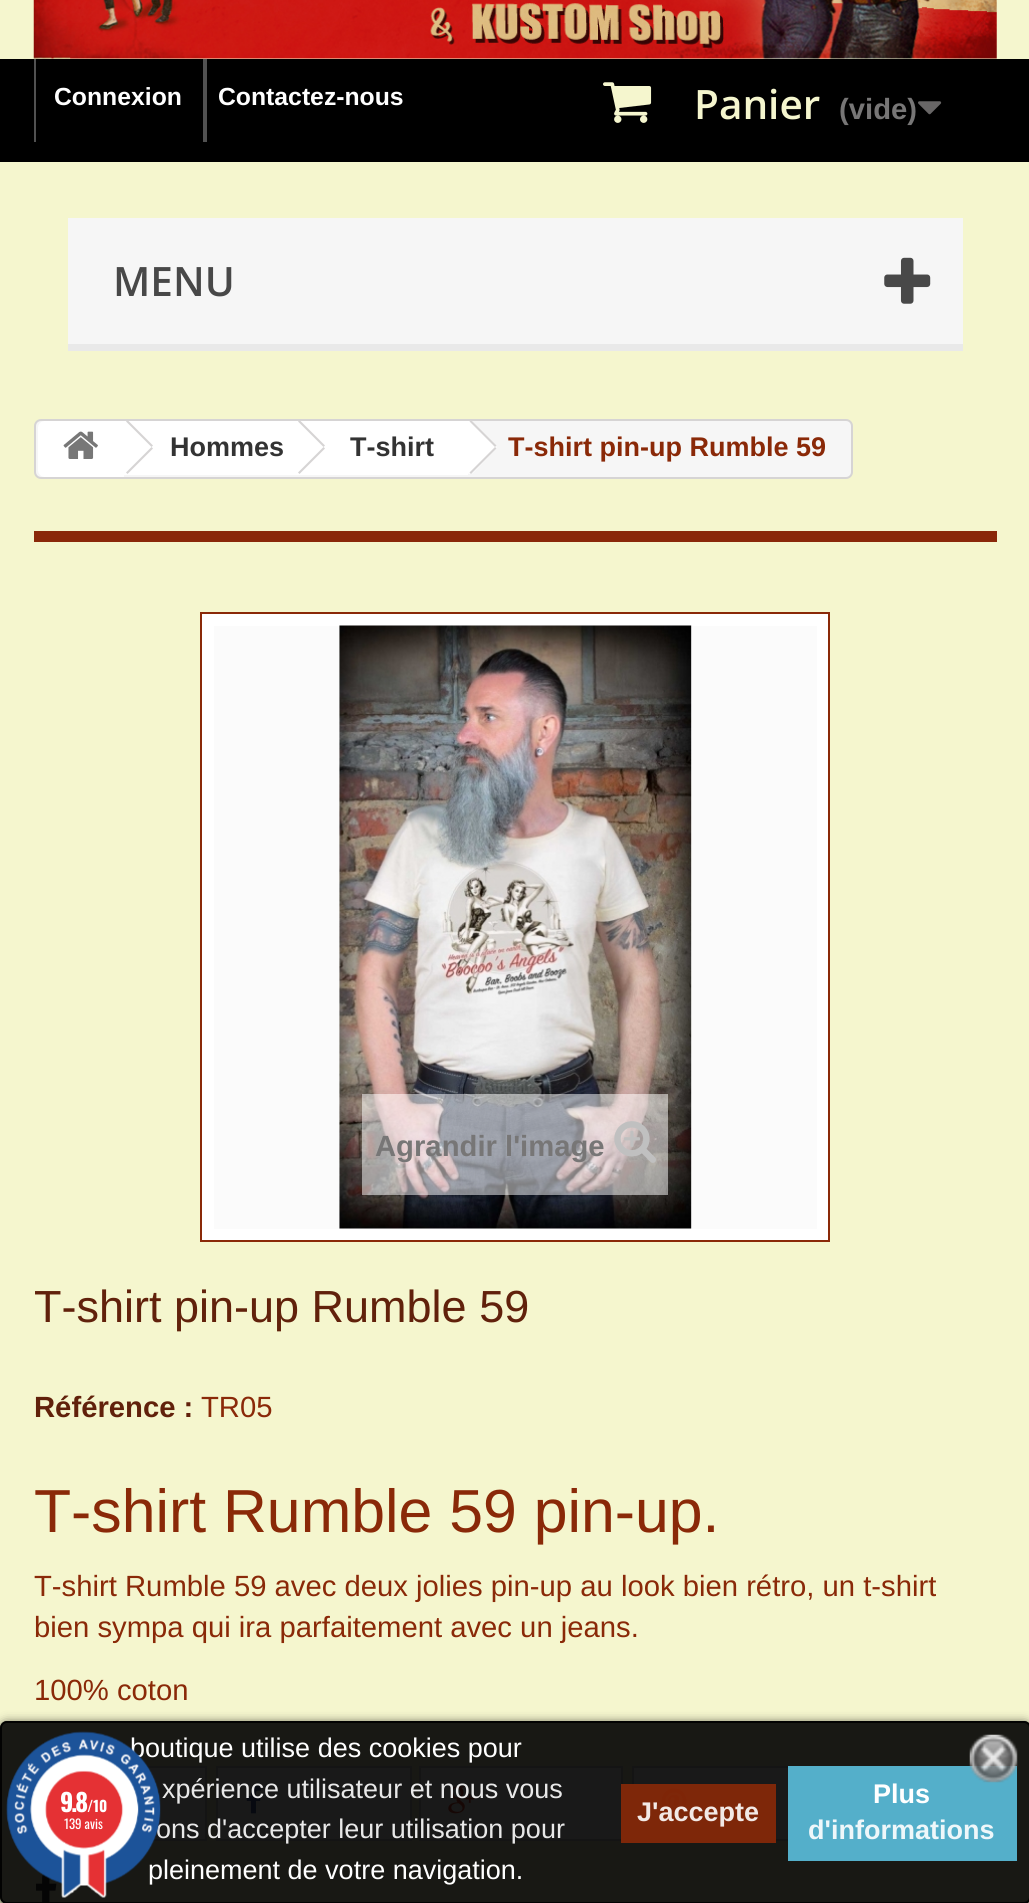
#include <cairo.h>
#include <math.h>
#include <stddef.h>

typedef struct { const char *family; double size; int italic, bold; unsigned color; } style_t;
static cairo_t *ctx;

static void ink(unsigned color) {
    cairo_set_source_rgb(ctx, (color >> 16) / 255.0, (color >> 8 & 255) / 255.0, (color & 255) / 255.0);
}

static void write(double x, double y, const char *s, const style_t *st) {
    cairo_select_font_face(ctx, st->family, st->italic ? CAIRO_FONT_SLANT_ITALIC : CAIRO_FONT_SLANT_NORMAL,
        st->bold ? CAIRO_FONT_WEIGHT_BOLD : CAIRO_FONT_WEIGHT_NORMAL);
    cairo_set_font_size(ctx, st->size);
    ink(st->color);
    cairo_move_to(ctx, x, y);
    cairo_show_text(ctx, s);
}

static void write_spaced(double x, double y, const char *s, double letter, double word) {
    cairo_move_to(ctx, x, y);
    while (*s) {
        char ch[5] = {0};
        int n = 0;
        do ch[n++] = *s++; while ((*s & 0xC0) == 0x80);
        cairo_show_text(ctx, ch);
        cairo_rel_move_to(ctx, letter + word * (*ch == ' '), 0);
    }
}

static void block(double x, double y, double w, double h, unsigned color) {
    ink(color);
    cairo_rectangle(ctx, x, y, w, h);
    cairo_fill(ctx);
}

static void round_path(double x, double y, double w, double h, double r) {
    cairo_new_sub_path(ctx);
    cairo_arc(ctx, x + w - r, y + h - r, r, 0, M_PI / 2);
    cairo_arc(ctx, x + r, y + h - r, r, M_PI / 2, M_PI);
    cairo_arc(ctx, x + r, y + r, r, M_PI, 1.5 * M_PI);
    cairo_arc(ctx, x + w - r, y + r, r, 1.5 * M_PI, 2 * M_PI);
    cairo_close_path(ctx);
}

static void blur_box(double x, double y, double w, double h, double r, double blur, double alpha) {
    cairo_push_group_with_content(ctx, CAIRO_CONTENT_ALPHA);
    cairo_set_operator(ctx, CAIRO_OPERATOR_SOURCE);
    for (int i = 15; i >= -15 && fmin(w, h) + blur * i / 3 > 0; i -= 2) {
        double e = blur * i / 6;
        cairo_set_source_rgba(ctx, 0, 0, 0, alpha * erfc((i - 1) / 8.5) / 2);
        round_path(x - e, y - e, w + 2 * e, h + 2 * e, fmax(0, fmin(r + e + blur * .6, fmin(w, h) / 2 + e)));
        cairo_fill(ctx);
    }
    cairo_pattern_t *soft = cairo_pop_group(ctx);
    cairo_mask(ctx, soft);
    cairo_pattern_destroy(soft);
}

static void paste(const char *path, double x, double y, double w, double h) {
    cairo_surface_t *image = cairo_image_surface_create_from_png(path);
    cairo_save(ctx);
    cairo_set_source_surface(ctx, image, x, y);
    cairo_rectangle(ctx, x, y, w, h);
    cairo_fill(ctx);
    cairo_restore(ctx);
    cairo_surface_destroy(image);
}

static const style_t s1 = {"Liberation Sans", 24.75, 0, 1, 0xffffff};
static const style_t s2 = {"Open Sans SemiBold", 40.5, 0, 0, 0xf5f6ce};
static const style_t s3 = {"Liberation Sans", 29.25, 0, 1, 0x777676};
static const style_t s4 = {"Open Sans SemiBold", 40.5, 0, 0, 0x484848};
static const style_t s5 = {"Liberation Sans", 27, 0, 0, 0xffffff};
static const style_t s6 = {"Liberation Sans", 27, 0, 0, 0xe8e8e8};
static const style_t s7 = {"Liberation Sans", 27, 0, 1, 0xf2e9e6};
static const style_t s8 = {"Liberation Sans", 27, 0, 1, 0xffffff};
static const style_t s9 = {"Liberation Sans", 27, 0, 1, 0xeef7fa};
static const style_t s10 = {"Liberation Sans", 27, 0, 1, 0x333333};
static const style_t s11 = {"Liberation Sans", 27, 0, 1, 0x8a2908};
static const style_t s12 = {"Liberation Sans", 45, 0, 0, 0x61210b};
static const style_t s13 = {"Liberation Sans", 29.25, 0, 1, 0x61210b};
static const style_t s14 = {"Liberation Sans", 29.25, 0, 0, 0x8a2908};
static const style_t s15 = {"Liberation Sans", 60.75, 0, 0, 0x8a2908};
static const style_t s16 = {"Oswald", 15, 0, 1, 0xffffff};
static const style_t s17 = {"Oswald", 13, 0, 0, 0xffffff};

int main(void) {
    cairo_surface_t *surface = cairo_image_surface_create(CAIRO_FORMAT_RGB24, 1029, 1903);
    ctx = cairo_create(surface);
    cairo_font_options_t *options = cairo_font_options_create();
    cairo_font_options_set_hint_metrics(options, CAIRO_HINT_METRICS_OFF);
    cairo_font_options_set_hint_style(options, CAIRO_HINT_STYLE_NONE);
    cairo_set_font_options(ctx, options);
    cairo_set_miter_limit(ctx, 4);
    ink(0xf5f6ce);
    cairo_paint(ctx);
    paste("pic1.png", 33, 0, 964, 59);
    block(0, 59, 1029, 103, 0x000000);
    block(203, 59, 4, 83, 0x515151);
    block(34, 59, 2, 83, 0x515151);
    write(54, 105, "Connexion", &s1);
    write(218, 105, "Contactez-nous", &s1);
    paste("pic2.png", 603, 82, 49, 41);
    write(694, 119, "Panier", &s2);
    write(839, 119, "(vide)", &s3);
    paste("pic3.png", 918, 101, 24, 14);
    block(68, 218, 895, 126, 0xf6f6f6);
    block(68, 344, 895, 7, 0xe9e9e9);
    write(113, 296, "MENU", &s4);
    paste("pic4.png", 884, 257, 47, 47);
    block(147, 1768, 58, 71, 0xffffff);
    cairo_rectangle(ctx, 35, 1767, 171, 73);
    ink(0xcccccc);
    cairo_stroke(ctx);
    ink(0xffffff);
    cairo_rectangle(ctx, 217, 1767, 194, 73);
    cairo_fill_preserve(ctx);
    ink(0xcccccc);
    cairo_stroke(ctx);
    paste("pic9.png", 246, 1786, 15, 28);
    ink(0xffffff);
    cairo_rectangle(ctx, 420, 1767, 202, 73);
    cairo_fill_preserve(ctx);
    ink(0xcccccc);
    cairo_stroke(ctx);
    paste("pic10.png", 448, 1786, 27, 28);
    ink(0xffffff);
    cairo_rectangle(ctx, 633, 1767, 205, 73);
    cairo_fill_preserve(ctx);
    ink(0xcccccc);
    cairo_stroke(ctx);
    paste("pic11.png", 661, 1788, 26, 26);
    paste("pic12.png", 36, 1873, 21, 30);
    cairo_save(ctx);
    cairo_set_fill_rule(ctx, CAIRO_FILL_RULE_EVEN_ODD);
    cairo_new_path(ctx);
    cairo_move_to(ctx, 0, 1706);
    cairo_line_to(ctx, 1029, 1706);
    cairo_line_to(ctx, 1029, 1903);
    cairo_line_to(ctx, 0, 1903);
    cairo_close_path(ctx);
    cairo_move_to(ctx, 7, 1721);
    cairo_line_to(ctx, 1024, 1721);
    cairo_curve_to(ctx, 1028, 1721, 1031, 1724, 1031, 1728);
    cairo_line_to(ctx, 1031, 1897);
    cairo_curve_to(ctx, 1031, 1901, 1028, 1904, 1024, 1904);
    cairo_line_to(ctx, 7, 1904);
    cairo_curve_to(ctx, 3, 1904, 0, 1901, 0, 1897);
    cairo_line_to(ctx, 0, 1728);
    cairo_curve_to(ctx, 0, 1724, 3, 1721, 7, 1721);
    cairo_close_path(ctx);
    cairo_clip(ctx);
    ink(0x191915);
    blur_box(0, 1724, 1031, 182, 7, 5.5, 1);
    cairo_restore(ctx);
    cairo_set_source_rgba(ctx, 0, 0, 0, 0.9);
    round_path(0, 1721, 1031, 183, 7);
    cairo_fill(ctx);
    round_path(1, 1722, 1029, 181, 6);
    cairo_stroke(ctx);
    cairo_set_source_rgba(ctx, 0.357, 0.753, 0.871, 0.9);
    cairo_rectangle(ctx, 788, 1766, 229, 95);
    cairo_fill(ctx);
    paste("pic5.png", 969, 1734, 49, 49);
    write(130, 1757, "boutique utilise des cookies pour", &s5);
    write(162, 1798, "xpérience utilisateur et nous vous", &s6);
    write(156, 1838, "ons d'accepter leur utilisation pour", &s6);
    write(148, 1879, "pleinement de votre navigation.", &s5);
    cairo_set_source_rgba(ctx, 0.541, 0.161, 0.031, 0.9);
    cairo_rectangle(ctx, 621, 1784, 155, 59);
    cairo_fill(ctx);
    write(637, 1821, "J'accepte", &s7);
    write(873, 1803, "Plus", &s8);
    write(808, 1839, "d'informations", &s9);
    ink(0xf6f6f6);
    round_path(35, 420, 817, 58, 6);
    cairo_fill_preserve(ctx);
    ink(0xd6d4d4);
    cairo_stroke(ctx);
    ink(0xffffff);
    cairo_new_path(ctx);
    cairo_move_to(ctx, 45, 421);
    cairo_line_to(ctx, 124, 421);
    cairo_line_to(ctx, 124, 477);
    cairo_line_to(ctx, 45, 477);
    cairo_curve_to(ctx, 41, 477, 38, 474, 38, 470);
    cairo_line_to(ctx, 38, 428);
    cairo_curve_to(ctx, 38, 424, 41, 421, 45, 421);
    cairo_close_path(ctx);
    cairo_fill(ctx);
    paste("pic6.png", 63, 431, 35, 28);
    block(124, 421, 175, 54, 0xffffff);
    ink(0xd6d4d4);
    cairo_new_path(ctx);
    cairo_move_to(ctx, 128.5, 421);
    cairo_line_to(ctx, 153, 445.5);
    cairo_line_to(ctx, 151.5, 447);
    cairo_line_to(ctx, 126, 421.5);
    cairo_line_to(ctx, 126.5, 421);
    cairo_close_path(ctx);
    cairo_move_to(ctx, 151.5, 447);
    cairo_line_to(ctx, 153, 448.5);
    cairo_line_to(ctx, 127.5, 474);
    cairo_line_to(ctx, 126, 472.5);
    cairo_close_path(ctx);
    cairo_fill(ctx);
    write(170, 456, "Hommes", &s10);
    ink(0xffffff);
    cairo_new_path(ctx);
    cairo_move_to(ctx, 324, 422);
    cairo_line_to(ctx, 323, 421);
    cairo_line_to(ctx, 318, 421);
    cairo_line_to(ctx, 317, 422);
    cairo_line_to(ctx, 295, 444);
    cairo_curve_to(ctx, 293, 446, 293, 449, 295, 450);
    cairo_line_to(ctx, 317, 473);
    cairo_curve_to(ctx, 319, 474, 322, 474, 324, 473);
    cairo_line_to(ctx, 346, 450);
    cairo_curve_to(ctx, 348, 449, 348, 446, 346, 444);
    cairo_close_path(ctx);
    cairo_fill(ctx);
    block(299, 421, 169, 54, 0xffffff);
    ink(0xd6d4d4);
    cairo_new_path(ctx);
    cairo_move_to(ctx, 300.5, 421);
    cairo_line_to(ctx, 325, 445.5);
    cairo_line_to(ctx, 323.5, 447);
    cairo_line_to(ctx, 298, 421.5);
    cairo_line_to(ctx, 298.5, 421);
    cairo_close_path(ctx);
    cairo_move_to(ctx, 323.5, 447);
    cairo_line_to(ctx, 325, 448.5);
    cairo_line_to(ctx, 299.5, 474);
    cairo_line_to(ctx, 298, 472.5);
    cairo_close_path(ctx);
    cairo_fill(ctx);
    write(350, 456, "T-shirt", &s10);
    ink(0xffffff);
    cairo_new_path(ctx);
    cairo_move_to(ctx, 473, 422);
    cairo_line_to(ctx, 472, 421);
    cairo_line_to(ctx, 467, 421);
    cairo_line_to(ctx, 466, 422);
    cairo_line_to(ctx, 444, 444);
    cairo_curve_to(ctx, 442, 446, 442, 449, 444, 450);
    cairo_line_to(ctx, 466, 473);
    cairo_curve_to(ctx, 468, 474, 471, 474, 473, 473);
    cairo_line_to(ctx, 495, 450);
    cairo_curve_to(ctx, 497, 449, 497, 446, 495, 444);
    cairo_close_path(ctx);
    cairo_fill(ctx);
    ink(0xd6d4d4);
    cairo_new_path(ctx);
    cairo_move_to(ctx, 472, 421);
    cairo_line_to(ctx, 496.5, 445.5);
    cairo_line_to(ctx, 495, 447);
    cairo_line_to(ctx, 469.5, 421.5);
    cairo_line_to(ctx, 470, 421);
    cairo_close_path(ctx);
    cairo_move_to(ctx, 495, 447);
    cairo_line_to(ctx, 496.5, 448.5);
    cairo_line_to(ctx, 471, 474);
    cairo_line_to(ctx, 469.5, 472.5);
    cairo_close_path(ctx);
    cairo_fill(ctx);
    write(508, 456, "T-shirt pin-up Rumble 59", &s11);
    block(34, 531, 963, 11, 0x8a2809);
    ink(0xffffff);
    cairo_rectangle(ctx, 201, 613, 628, 628);
    cairo_fill_preserve(ctx);
    ink(0x8a2908);
    cairo_stroke(ctx);
    block(214, 626, 603, 603, 0xfbfbfb);
    paste("pic7.png", 339, 625, 353, 604);
    cairo_save(ctx);
    cairo_set_fill_rule(ctx, CAIRO_FILL_RULE_EVEN_ODD);
    cairo_new_path(ctx);
    cairo_move_to(ctx, 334, 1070);
    cairo_line_to(ctx, 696, 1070);
    cairo_line_to(ctx, 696, 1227);
    cairo_line_to(ctx, 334, 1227);
    cairo_close_path(ctx);
    cairo_move_to(ctx, 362, 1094);
    cairo_line_to(ctx, 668, 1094);
    cairo_line_to(ctx, 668, 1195);
    cairo_line_to(ctx, 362, 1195);
    cairo_close_path(ctx);
    cairo_clip(ctx);
    ink(0x000000);
    blur_box(362, 1098, 306, 101, 0, 9, 0.16);
    cairo_restore(ctx);
    cairo_set_source_rgba(ctx, 1, 1, 1, 0.5);
    cairo_rectangle(ctx, 362, 1094, 306, 101);
    cairo_fill(ctx);
    write(375, 1156, "Agrandir l'image", &s3);
    paste("pic8.png", 614, 1121, 42, 42);
    write(34, 1322, "T-shirt pin-up Rumble 59", &s12);
    write(34, 1417, "Référence :", &s13);
    write(201, 1417, "TR05", &s14);
    write(34, 1532, "T-shirt Rumble 59 pin-up.", &s15);
    write(34, 1596, "T-shirt Rumble 59 avec deux jolies pin-up au look bien rétro, un t-shirt", &s14);
    write(34, 1637, "bien sympa qui ira parfaitement avec un jeans.", &s14);
    write(34, 1700, "100% coton", &s14);
    paste("pic13.png", 6, 1731, 155, 167);
    cairo_select_font_face(ctx, "Oswald", CAIRO_FONT_SLANT_NORMAL, CAIRO_FONT_WEIGHT_BOLD);
    cairo_set_font_size(ctx, 24.75);
    ink(0xffffff);
    write_spaced(60, 1812, "9.8", -2, 0);
    write(87, 1812, "/10", &s16);
    write(64, 1829, "139 avis", &s17);
    cairo_surface_write_to_png(surface, "screenshot.png");
    cairo_font_options_destroy(options);
    cairo_destroy(ctx);
    cairo_surface_destroy(surface);
    return 0;
}
